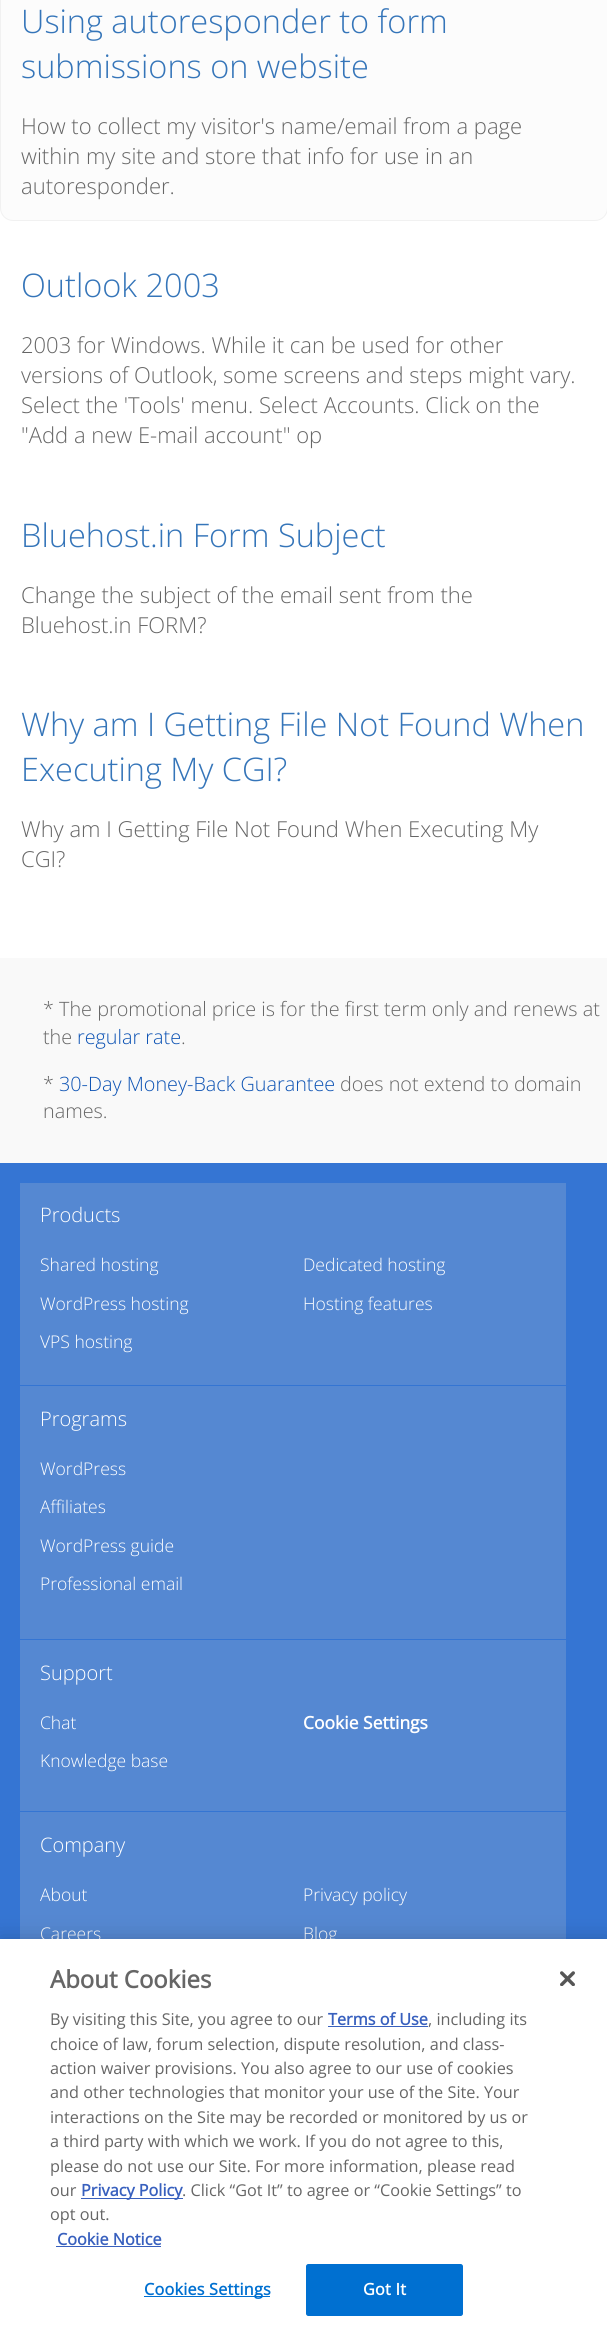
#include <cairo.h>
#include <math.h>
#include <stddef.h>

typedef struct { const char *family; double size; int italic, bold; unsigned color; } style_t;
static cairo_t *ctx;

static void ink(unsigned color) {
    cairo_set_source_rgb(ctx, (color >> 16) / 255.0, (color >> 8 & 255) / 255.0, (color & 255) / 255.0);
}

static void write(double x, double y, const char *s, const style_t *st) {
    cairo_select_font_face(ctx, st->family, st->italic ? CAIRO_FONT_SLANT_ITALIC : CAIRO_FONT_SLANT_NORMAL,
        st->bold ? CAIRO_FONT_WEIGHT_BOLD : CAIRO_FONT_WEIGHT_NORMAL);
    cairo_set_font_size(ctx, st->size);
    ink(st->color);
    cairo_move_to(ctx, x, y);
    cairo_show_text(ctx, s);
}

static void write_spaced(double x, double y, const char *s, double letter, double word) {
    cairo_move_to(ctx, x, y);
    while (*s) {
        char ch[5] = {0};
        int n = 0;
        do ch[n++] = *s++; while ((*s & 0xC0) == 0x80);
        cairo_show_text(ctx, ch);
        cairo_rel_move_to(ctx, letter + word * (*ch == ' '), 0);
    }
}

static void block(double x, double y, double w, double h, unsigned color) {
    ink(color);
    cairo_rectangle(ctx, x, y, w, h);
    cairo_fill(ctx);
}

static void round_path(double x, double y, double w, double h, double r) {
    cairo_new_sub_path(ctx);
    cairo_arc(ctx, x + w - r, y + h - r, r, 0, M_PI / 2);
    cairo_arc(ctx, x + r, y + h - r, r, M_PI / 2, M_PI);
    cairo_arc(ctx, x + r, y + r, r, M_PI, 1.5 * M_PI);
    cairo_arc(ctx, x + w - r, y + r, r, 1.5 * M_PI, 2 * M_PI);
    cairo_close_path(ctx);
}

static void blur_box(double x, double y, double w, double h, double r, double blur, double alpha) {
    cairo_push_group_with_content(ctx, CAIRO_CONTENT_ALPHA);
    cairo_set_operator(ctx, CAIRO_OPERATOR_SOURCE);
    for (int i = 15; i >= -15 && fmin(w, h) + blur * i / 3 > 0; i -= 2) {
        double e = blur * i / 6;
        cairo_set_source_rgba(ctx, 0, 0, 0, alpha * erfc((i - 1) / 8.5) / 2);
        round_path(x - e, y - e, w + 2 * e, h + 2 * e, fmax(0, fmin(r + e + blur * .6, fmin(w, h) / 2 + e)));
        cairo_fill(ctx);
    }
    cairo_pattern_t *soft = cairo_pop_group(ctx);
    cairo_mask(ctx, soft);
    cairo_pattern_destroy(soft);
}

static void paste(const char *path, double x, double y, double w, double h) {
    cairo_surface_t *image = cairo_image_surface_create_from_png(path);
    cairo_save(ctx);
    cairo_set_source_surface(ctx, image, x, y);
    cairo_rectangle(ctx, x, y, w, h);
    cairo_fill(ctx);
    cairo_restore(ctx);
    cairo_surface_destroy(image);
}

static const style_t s1 = {"Open Sans Light", 32.5, 0, 0, 0x3575b9};
static const style_t s2 = {"Open Sans Light", 22, 0, 0, 0x666666};
static const style_t s3 = {"Open Sans Light", 19.8, 0, 0, 0x666666};
static const style_t s4 = {"Open Sans Light", 19.8, 0, 0, 0x0d53b4};
static const style_t s5 = {"Open Sans Light", 20, 0, 0, 0xffffff};
static const style_t s6 = {"Open Sans Light", 17.5, 0, 0, 0xffffff};
static const style_t s7 = {"Open Sans", 17.5, 0, 1, 0xffffff};
static const style_t s8 = {"Open Sans", 24, 0, 1, 0x666666};
static const style_t s9 = {"Open Sans", 16.25, 0, 0, 0x666666};
static const style_t s10 = {"Open Sans", 16.25, 0, 1, 0x3860be};

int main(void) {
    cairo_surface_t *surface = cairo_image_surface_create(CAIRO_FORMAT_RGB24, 607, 2336);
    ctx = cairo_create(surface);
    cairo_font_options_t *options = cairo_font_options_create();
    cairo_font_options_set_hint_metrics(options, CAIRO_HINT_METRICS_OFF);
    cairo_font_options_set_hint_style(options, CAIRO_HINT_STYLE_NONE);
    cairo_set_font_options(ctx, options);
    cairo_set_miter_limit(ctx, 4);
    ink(0xffffff);
    cairo_paint(ctx);
    ink(0xfcfcfc);
    round_path(0.5, -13.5, 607, 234, 12.5);
    cairo_fill_preserve(ctx);
    ink(0xf1f1f1);
    cairo_set_line_width(ctx, 1);
    cairo_stroke(ctx);
    write(21, 33, "Using autoresponder to form", &s1);
    write(21, 78, "submissions on website", &s1);
    write(21, 134, "How to collect my visitor's name/email from a page", &s2);
    write(21, 164, "within my site and store that info for use in an", &s2);
    write(21, 194, "autoresponder.", &s2);
    write(21, 297, "Outlook 2003", &s1);
    write(21, 353, "2003 for Windows. While it can be used for other", &s2);
    write(21, 383, "versions of Outlook, some screens and steps might vary.", &s2);
    write(21, 413, "Select the 'Tools' menu. Select Accounts. Click on the", &s2);
    write(21, 443, "\"Add a new E-mail account\" op", &s2);
    write(21, 547, "Bluehost.in Form Subject", &s1);
    write(21, 603, "Change the subject of the email sent from the", &s2);
    write(21, 633, "Bluehost.in FORM?", &s2);
    write(21, 736, "Why am I Getting File Not Found When", &s1);
    write(21, 781, "Executing My CGI?", &s1);
    write(21, 837, "Why am I Getting File Not Found When Executing My", &s2);
    write(21, 867, "CGI?", &s2);
    block(0, 1163, 607, 776, 0x3575d3);
    block(0, 958, 607, 205, 0xf9f9f9);
    write(43, 1016, "* The promotional price is for the first term only and renews at", &s3);
    write(43, 1044, "the", &s3);
    write(77, 1044, "regular rate", &s4);
    write(181, 1044, ".", &s3);
    write(43, 1091, "*", &s3);
    write(59, 1091, "30-Day Money-Back Guarantee", &s4);
    write(340, 1091, "does not extend to domain", &s3);
    write(43, 1118, "names.", &s3);
    block(20, 1183, 546, 756, 0x5588d2);
    block(20, 1385, 546, 1, 0x3475d3);
    write(40, 1222, "Products", &s5);
    write(40, 1271, "Shared hosting", &s6);
    write(303, 1271, "Dedicated hosting", &s6);
    write(40, 1310, "WordPress hosting", &s6);
    write(303, 1310, "Hosting features", &s6);
    write(40, 1348, "VPS hosting", &s6);
    block(20, 1639, 546, 1, 0x3475d3);
    write(40, 1426, "Programs", &s5);
    write(40, 1475, "WordPress", &s6);
    write(40, 1513, "Affiliates", &s6);
    write(40, 1552, "WordPress guide", &s6);
    write(40, 1590, "Professional email", &s6);
    block(20, 1811, 546, 1, 0x3475d3);
    write(40, 1680, "Support", &s5);
    write(40, 1729, "Chat", &s6);
    write(303, 1729, "Cookie Settings", &s7);
    write(40, 1767, "Knowledge base", &s6);
    write(40, 1852, "Company", &s5);
    write(40, 1901, "About", &s6);
    write(303, 1901, "Privacy policy", &s6);
    write(40, 1940, "Careers", &s6);
    write(303, 1940, "Blog", &s6);
    ink(0x000000);
    blur_box(0, 1939, 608, 397, 0, 11, 0.2);
    block(0, 1939, 607, 397, 0xffffff);
    write(50, 1988, "About Cookies", &s8);
    write(50, 2025, "By visiting this Site, you agree to our", &s9);
    write(328, 2025, "Terms of Use", &s10);
    block(328, 2026, 100, 1, 0x3860be);
    write(428, 2025, ", including its", &s9);
    write(50, 2050, "choice of law, forum selection, dispute resolution, and class-", &s9);
    write(50, 2074, "action waiver provisions. You also agree to our use of cookies", &s9);
    write(50, 2098, "and other technologies that monitor your use of the Site. Your", &s9);
    write(50, 2123, "interactions on the Site may be recorded or monitored by us or", &s9);
    write(50, 2147, "a third party with which we work. If you do not agree to this,", &s9);
    write(50, 2172, "please do not use our Site. For more information, please read", &s9);
    write(50, 2196, "our", &s9);
    block(81, 2198, 102, 1, 0x3860be);
    write(81, 2196, "Privacy Policy", &s10);
    write(182, 2196, ". Click “Got It” to agree or “Cookie Settings” to", &s9);
    write(50, 2220, "opt out.", &s9);
    write(57, 2245, "Cookie Notice", &s10);
    block(56, 2246, 105, 1, 0x3860be);
    block(144, 2296, 126, 1, 0x0070d1);
    write_spaced(144, 2295, "Cookies Settings", 0.2, 0);
    round_path(306.5, 2264.5, 156, 51, 2);
    cairo_fill_preserve(ctx);
    cairo_stroke(ctx);
    ink(0xffffff);
    write_spaced(363, 2295, "Got It", 0.2, 0);
    paste("pic1.png", 560, 1971, 15, 15);
    cairo_surface_write_to_png(surface, "screenshot.png");
    cairo_font_options_destroy(options);
    cairo_destroy(ctx);
    cairo_surface_destroy(surface);
    return 0;
}
